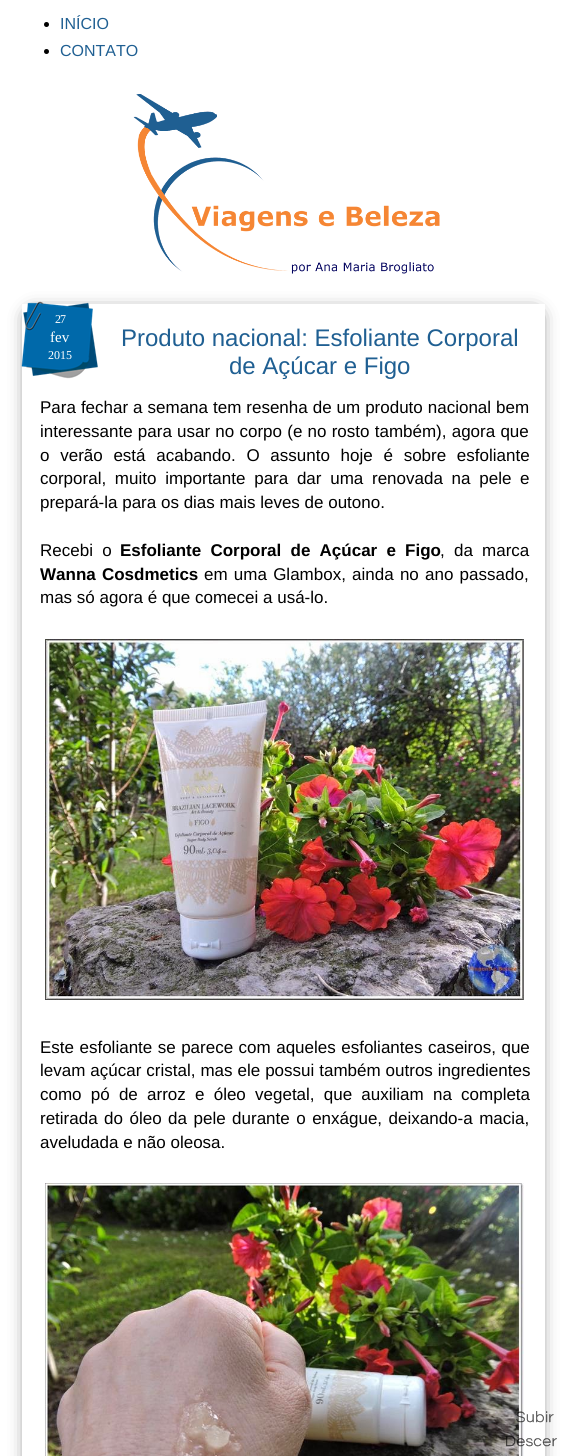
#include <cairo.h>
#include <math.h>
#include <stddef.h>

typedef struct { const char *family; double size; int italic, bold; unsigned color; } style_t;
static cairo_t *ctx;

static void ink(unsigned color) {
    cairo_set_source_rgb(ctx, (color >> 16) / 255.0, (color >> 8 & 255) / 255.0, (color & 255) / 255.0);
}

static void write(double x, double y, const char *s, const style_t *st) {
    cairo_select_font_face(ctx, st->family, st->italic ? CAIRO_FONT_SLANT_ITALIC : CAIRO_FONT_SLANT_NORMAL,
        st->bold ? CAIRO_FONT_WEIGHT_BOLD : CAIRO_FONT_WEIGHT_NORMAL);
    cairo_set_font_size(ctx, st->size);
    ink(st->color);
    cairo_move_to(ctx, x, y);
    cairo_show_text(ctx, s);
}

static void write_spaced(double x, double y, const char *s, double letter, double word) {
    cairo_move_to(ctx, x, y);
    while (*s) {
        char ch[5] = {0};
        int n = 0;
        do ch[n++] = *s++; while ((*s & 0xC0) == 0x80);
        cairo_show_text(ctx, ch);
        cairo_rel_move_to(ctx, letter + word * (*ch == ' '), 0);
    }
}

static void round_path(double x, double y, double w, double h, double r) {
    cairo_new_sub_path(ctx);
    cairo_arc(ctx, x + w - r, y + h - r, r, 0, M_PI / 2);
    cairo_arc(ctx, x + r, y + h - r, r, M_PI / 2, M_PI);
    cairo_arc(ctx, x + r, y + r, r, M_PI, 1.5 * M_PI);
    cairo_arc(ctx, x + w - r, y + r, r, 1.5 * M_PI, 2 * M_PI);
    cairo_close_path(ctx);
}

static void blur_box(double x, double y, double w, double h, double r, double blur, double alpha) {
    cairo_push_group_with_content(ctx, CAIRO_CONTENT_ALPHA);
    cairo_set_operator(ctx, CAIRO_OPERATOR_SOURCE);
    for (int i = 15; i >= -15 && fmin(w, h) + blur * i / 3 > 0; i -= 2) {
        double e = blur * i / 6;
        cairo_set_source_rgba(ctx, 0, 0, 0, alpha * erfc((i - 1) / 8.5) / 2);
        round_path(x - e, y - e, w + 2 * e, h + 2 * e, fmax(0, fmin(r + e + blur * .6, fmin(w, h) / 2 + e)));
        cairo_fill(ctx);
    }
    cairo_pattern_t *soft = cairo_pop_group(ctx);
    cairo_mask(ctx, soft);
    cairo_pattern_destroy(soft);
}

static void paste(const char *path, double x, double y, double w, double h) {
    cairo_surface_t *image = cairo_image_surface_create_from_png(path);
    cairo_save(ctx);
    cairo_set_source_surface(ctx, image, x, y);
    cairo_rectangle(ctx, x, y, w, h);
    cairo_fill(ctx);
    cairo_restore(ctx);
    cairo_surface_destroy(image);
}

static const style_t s1 = {"Liberation Sans", 16, 0, 0, 0x1f5f92};
static const style_t s2 = {"Liberation Serif", 15, 0, 0, 0xffffff};
static const style_t s3 = {"Liberation Serif", 12, 0, 0, 0xffffff};
static const style_t s4 = {"Liberation Sans", 24, 0, 0, 0x1f5f92};
static const style_t s5 = {"Liberation Sans", 17, 0, 0, 0x000000};

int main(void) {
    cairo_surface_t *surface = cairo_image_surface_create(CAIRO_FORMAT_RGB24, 562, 1456);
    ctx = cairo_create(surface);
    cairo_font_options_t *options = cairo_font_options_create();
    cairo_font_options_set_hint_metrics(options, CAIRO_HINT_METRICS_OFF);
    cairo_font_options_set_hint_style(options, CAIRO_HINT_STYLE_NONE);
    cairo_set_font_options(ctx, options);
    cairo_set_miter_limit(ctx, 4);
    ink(0xffffff);
    cairo_paint(ctx);
    ink(0x000000);
    cairo_arc(ctx, 46.5, 24.5, 2.5, 0, 2 * M_PI);
    cairo_fill(ctx);
    write(60, 29, "INÍCIO", &s1);
    ink(0x000000);
    cairo_new_path(ctx);
    cairo_arc(ctx, 46.5, 51.5, 2.5, 0, 2 * M_PI);
    cairo_fill(ctx);
    write(60, 56, "CONTATO", &s1);
    paste("pic1.png", 133, 94, 307, 180);
    cairo_save(ctx);
    cairo_set_fill_rule(ctx, CAIRO_FILL_RULE_EVEN_ODD);
    cairo_new_path(ctx);
    cairo_move_to(ctx, 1, 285);
    cairo_line_to(ctx, 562, 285);
    cairo_line_to(ctx, 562, 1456);
    cairo_line_to(ctx, 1, 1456);
    cairo_close_path(ctx);
    cairo_move_to(ctx, 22, 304);
    cairo_line_to(ctx, 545, 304);
    cairo_line_to(ctx, 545, 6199);
    cairo_line_to(ctx, 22, 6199);
    cairo_close_path(ctx);
    cairo_clip(ctx);
    ink(0x000000);
    blur_box(32, 316, 503, 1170, 0, 10, 1);
    cairo_restore(ctx);
    paste("pic2.png", 21, 301, 77, 78);
    cairo_select_font_face(ctx, "Liberation Serif", CAIRO_FONT_SLANT_NORMAL, CAIRO_FONT_WEIGHT_NORMAL);
    cairo_set_font_size(ctx, 12);
    ink(0xffffff);
    write_spaced(55, 323, "27", -1, 0);
    write(50, 342, "fev", &s2);
    write(48, 359, "2015", &s3);
    write(121, 346, "Produto nacional: Esfoliante Corporal", &s4);
    write(229, 374, "de Açúcar e Figo", &s4);
    cairo_set_font_size(ctx, 17);
    ink(0x000000);
    write_spaced(40, 413, "Para fechar a semana tem resenha de um produto nacional bem", 0, 0.25);
    write_spaced(40, 437, "interessante para usar no corpo (e no rosto também), agora que", 0, 0.5);
    write_spaced(40, 461, "o verão está acabando. O assunto hoje é sobre esfoliante", 0, 6);
    write_spaced(40, 484, "corporal, muito importante para dar uma renovada na pele e", 0, 4);
    write(40, 508, "prepará-la para os dias mais leves de outono.", &s5);
    write_spaced(40, 556, "Recebi o", 0, 4.5);
    cairo_select_font_face(ctx, "Liberation Sans", CAIRO_FONT_SLANT_NORMAL, CAIRO_FONT_WEIGHT_BOLD);
    write_spaced(120, 556, "Esfoliante Corporal de Açúcar e Figo", 0, 4.5);
    cairo_select_font_face(ctx, "Liberation Sans", CAIRO_FONT_SLANT_NORMAL, CAIRO_FONT_WEIGHT_NORMAL);
    write_spaced(440, 556, ", da marca", 0, 4.5);
    cairo_select_font_face(ctx, "Liberation Sans", CAIRO_FONT_SLANT_NORMAL, CAIRO_FONT_WEIGHT_BOLD);
    write_spaced(40, 580, "Wanna Cosdmetics", 0, 1.5);
    cairo_select_font_face(ctx, "Liberation Sans", CAIRO_FONT_SLANT_NORMAL, CAIRO_FONT_WEIGHT_NORMAL);
    write_spaced(204, 580, "em uma Glambox, ainda no ano passado,", 0, 1.5);
    write(40, 603, "mas só agora é que comecei a usá-lo.", &s5);
    paste("pic3.png", 45, 639, 479, 361);
    write_spaced(40, 1053, "Este esfoliante se parece com aqueles esfoliantes caseiros, que", 0, 0.75);
    write_spaced(40, 1076, "levam açúcar cristal, mas ele possui também outros ingredientes", 0, 0.25);
    write_spaced(40, 1100, "como pó de arroz e óleo vegetal, que auxiliam na completa", 0, 4.5);
    write_spaced(40, 1124, "retirada do óleo da pele durante o enxágue, deixando-a macia,", 0, 1.75);
    write(40, 1148, "aveludada e não oleosa.", &s5);
    paste("pic4.png", 45, 1183, 479, 273);
    paste("pic5.png", 516, 1411, 38, 12);
    paste("pic6.png", 506, 1435, 51, 12);
    cairo_surface_write_to_png(surface, "screenshot.png");
    cairo_font_options_destroy(options);
    cairo_destroy(ctx);
    cairo_surface_destroy(surface);
    return 0;
}
